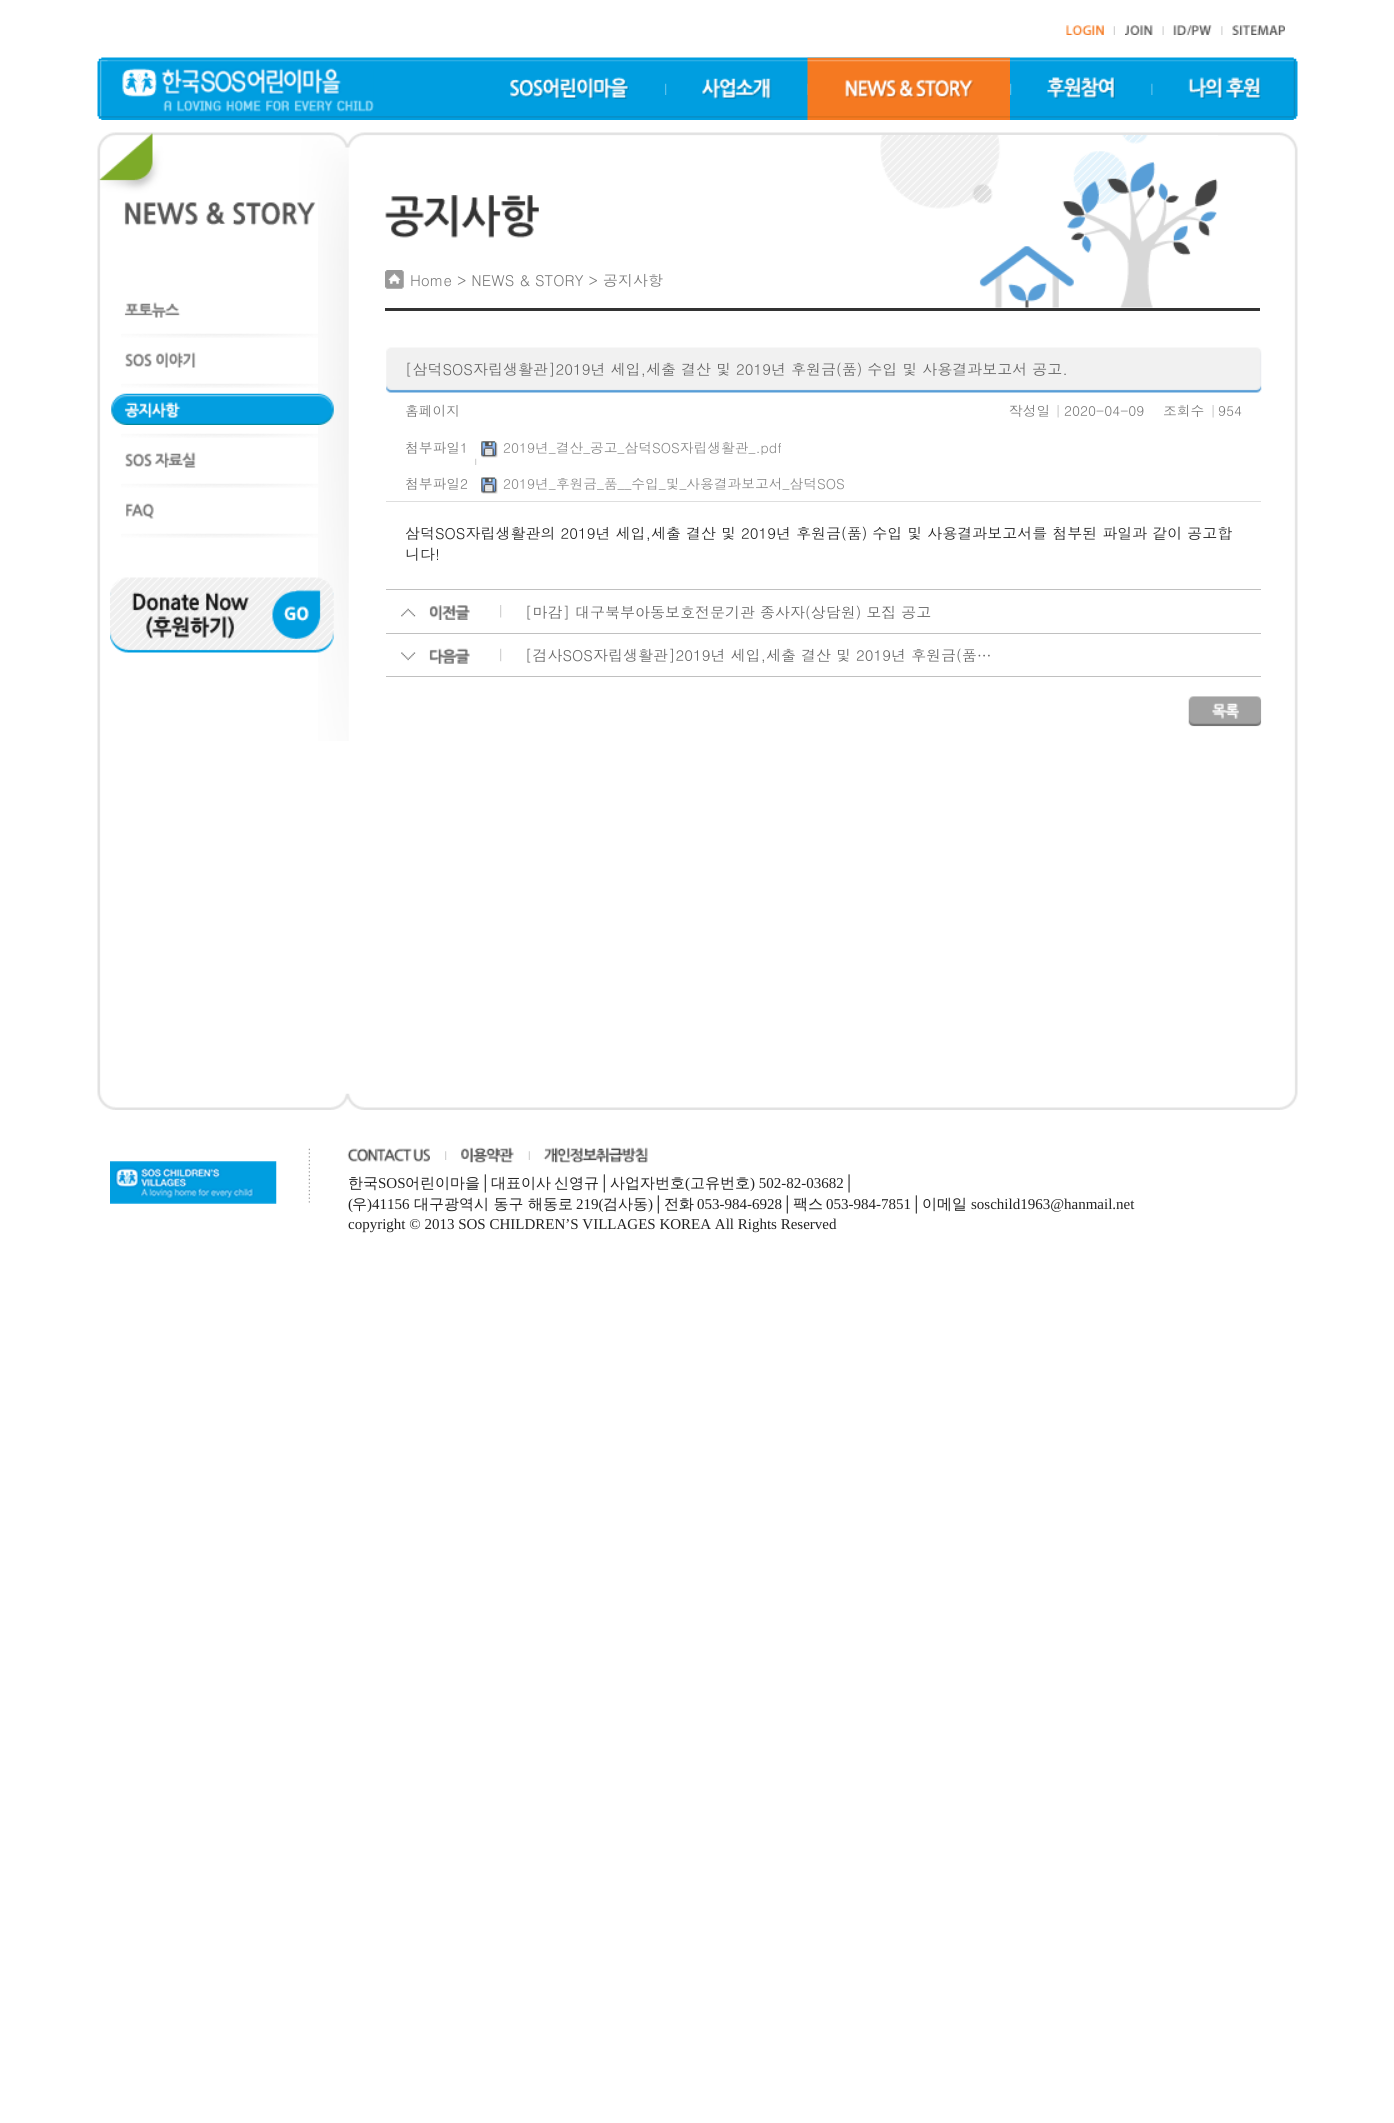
#include <cairo.h>
#include <math.h>
#include <stddef.h>

typedef struct { const char *family; double size; int italic, bold; unsigned color; } style_t;
static cairo_t *ctx;

static void ink(unsigned color) {
    cairo_set_source_rgb(ctx, (color >> 16) / 255.0, (color >> 8 & 255) / 255.0, (color & 255) / 255.0);
}

static void write(double x, double y, const char *s, const style_t *st) {
    cairo_select_font_face(ctx, st->family, st->italic ? CAIRO_FONT_SLANT_ITALIC : CAIRO_FONT_SLANT_NORMAL,
        st->bold ? CAIRO_FONT_WEIGHT_BOLD : CAIRO_FONT_WEIGHT_NORMAL);
    cairo_set_font_size(ctx, st->size);
    ink(st->color);
    cairo_move_to(ctx, x, y);
    cairo_show_text(ctx, s);
}

static void block(double x, double y, double w, double h, unsigned color) {
    ink(color);
    cairo_rectangle(ctx, x, y, w, h);
    cairo_fill(ctx);
}

static void paste(const char *path, double x, double y, double w, double h) {
    cairo_surface_t *image = cairo_image_surface_create_from_png(path);
    cairo_save(ctx);
    cairo_set_source_surface(ctx, image, x, y);
    cairo_rectangle(ctx, x, y, w, h);
    cairo_fill(ctx);
    cairo_restore(ctx);
    cairo_surface_destroy(image);
}

static const style_t s1 = {"Dotum", 15, 0, 0, 0x797979};
static const style_t s2 = {"Dotum", 15, 0, 0, 0x666666};
static const style_t s3 = {"Dotum", 13.75, 0, 0, 0x797979};
static const style_t s4 = {"Dotum", 13.75, 0, 0, 0x888888};
static const style_t s5 = {"Dotum", 15, 0, 0, 0x222222};
static const style_t s6 = {"WenQuanYi Zen Hei Medium", 15, 0, 0, 0x222222};
static const style_t s7 = {"Liberation Serif", 15, 0, 0, 0x222222};

int main(void) {
    cairo_surface_t *surface = cairo_image_surface_create(CAIRO_FORMAT_RGB24, 1394, 2123);
    ctx = cairo_create(surface);
    cairo_font_options_t *options = cairo_font_options_create();
    cairo_font_options_set_hint_metrics(options, CAIRO_HINT_METRICS_OFF);
    cairo_font_options_set_hint_style(options, CAIRO_HINT_STYLE_NONE);
    cairo_set_font_options(ctx, options);
    cairo_set_miter_limit(ctx, 4);
    ink(0xffffff);
    cairo_paint(ctx);
    paste("pic1.png", 1066, 25, 38, 10);
    paste("pic2.png", 1113, 26, 2, 9);
    paste("pic3.png", 1125, 25, 28, 10);
    paste("pic4.png", 1162, 26, 2, 9);
    paste("pic5.png", 1173, 25, 39, 10);
    paste("pic6.png", 1221, 26, 2, 9);
    paste("pic7.png", 1232, 25, 53, 10);
    paste("pic8.png", 97, 57, 1201, 63);
    paste("pic9.png", 510, 77, 119, 22);
    paste("pic10.png", 665, 83, 2, 12);
    paste("pic11.png", 702, 78, 70, 21);
    paste("pic12.png", 807, 83, 1, 12);
    paste("pic13.png", 807, 57, 203, 63);
    paste("pic14.png", 845, 79, 129, 19);
    paste("pic10.png", 1010, 83, 2, 12);
    paste("pic15.png", 1047, 77, 68, 22);
    paste("pic16.png", 1151, 83, 2, 12);
    paste("pic17.png", 1188, 77, 73, 22);
    paste("pic18.png", 122, 68, 252, 44);
    paste("pic19.png", 97, 1060, 1201, 50);
    paste("pic30.png", 97, 200, 1201, 860);
    paste("pic20.png", 318, 200, 31, 541);
    paste("pic21.png", 124, 202, 192, 24);
    paste("pic22.png", 121, 333, 197, 5);
    paste("pic23.png", 124, 302, 57, 16);
    paste("pic22.png", 121, 383, 197, 5);
    paste("pic24.png", 125, 352, 71, 16);
    paste("pic22.png", 121, 433, 197, 5);
    paste("pic25.png", 111, 393, 223, 32);
    paste("pic22.png", 121, 483, 197, 5);
    paste("pic26.png", 125, 452, 71, 16);
    paste("pic22.png", 121, 533, 197, 5);
    paste("pic27.png", 126, 503, 28, 16);
    paste("pic28.png", 110, 577, 224, 76);
    paste("pic29.png", 97, 132, 1201, 68);
    paste("pic31.png", 880, 135, 338, 173);
    block(385, 308, 875, 3, 0x333333);
    paste("pic32.png", 385, 195, 154, 43);
    paste("pic33.png", 385, 270, 19, 19);
    write(410, 286, "Home > NEWS & STORY > 공지사항", &s1);
    paste("pic34.png", 386, 347, 876, 46);
    write(405, 375, "[삼덕SOS자립생활관]2019년 세입,세출 결산 및 2019년 후원금(품) 수입 및 사용결과보고서 공고.", &s2);
    block(386, 501, 875, 1, 0xdedede);
    write(405, 416, "홈페이지", &s3);
    write(1009, 416, "작성일", &s3);
    paste("pic35.png", 1057, 405, 2, 13);
    write(1064, 416, "2020-04-09", &s3);
    write(1163, 416, "조회수", &s3);
    paste("pic35.png", 1212, 405, 2, 13);
    write(1218, 416, "954", &s3);
    write(405, 453, "첨부파일1", &s3);
    paste("pic36.png", 475, 458, 2, 7);
    paste("pic37.png", 481, 441, 17, 17);
    write(503, 453, "2019년_결산_공고_삼덕SOS자립생활관_.pdf", &s4);
    write(405, 489, "첨부파일2", &s3);
    paste("pic38.png", 481, 477, 17, 17);
    write(503, 489, "2019년_후원금_품__수입_및_사용결과보고서_삼덕SOS", &s4);
    write(405, 539, "삼덕SOS자립생활관의 2019년 세입,세출 결산 및 2019년 후원금(품) 수입 및 사용결과보고서를 첨부된 파일과 같이 공고합", &s5);
    write(405, 560, "니다!", &s5);
    block(386, 589, 875, 1, 0xc0c0c0);
    block(386, 633, 875, 1, 0xc0c0c0);
    paste("pic39.png", 401, 605, 69, 15);
    paste("pic40.png", 500, 605, 2, 13);
    write(525, 618, "[마감] 대구북부아동보호전문기관 종사자(상담원) 모집 공고", &s2);
    block(386, 676, 875, 1, 0xc0c0c0);
    paste("pic41.png", 401, 648, 69, 16);
    paste("pic42.png", 500, 648, 2, 14);
    write(525, 661, "[검사SOS자립생활관]2019년 세입,세출 결산 및 2019년 후원금(품…", &s2);
    paste("pic43.png", 1188, 696, 74, 31);
    paste("pic44.png", 308, 1148, 2, 55);
    paste("pic45.png", 110, 1161, 167, 43);
    paste("pic46.png", 347, 1148, 83, 14);
    paste("pic47.png", 445, 1151, 2, 9);
    paste("pic48.png", 461, 1147, 53, 16);
    paste("pic2.png", 528, 1151, 2, 9);
    paste("pic49.png", 543, 1147, 105, 16);
    write(348, 1188, "한국", &s6);
    write(378, 1188, "SOS", &s7);
    write(405, 1188, "어린이마을", &s6);
    write(480, 1188, "│", &s7);
    write(491, 1188, "대표이사", &s6);
    write(554, 1188, "신영규", &s6);
    write(599, 1188, "│", &s7);
    write(610, 1188, "사업자번호", &s6);
    write(685, 1188, "(", &s7);
    write(690, 1188, "고유번호", &s6);
    write(750, 1188, ") 502-82-03682│", &s7);
    write(348, 1209, "(", &s7);
    write(352, 1209, "우", &s6);
    write(367, 1209, ")41156", &s7);
    write(414, 1209, "대구광역시 동구 해동로", &s6);
    write(576, 1209, "219(", &s7);
    write(603, 1209, "검사동", &s6);
    write(648, 1209, ")│", &s7);
    write(664, 1209, "전화", &s6);
    write(697, 1209, "053-984-6928│", &s7);
    write(793, 1209, "팩스", &s6);
    write(826, 1209, "053-984-7851│", &s7);
    write(922, 1209, "이메일", &s6);
    write(971, 1209, "soschild1963@hanmail.net", &s7);
    write(348, 1229, "copyright © 2013 SOS CHILDREN’S VILLAGES KOREA All Rights Reserved", &s7);
    cairo_surface_write_to_png(surface, "screenshot.png");
    cairo_font_options_destroy(options);
    cairo_destroy(ctx);
    cairo_surface_destroy(surface);
    return 0;
}
